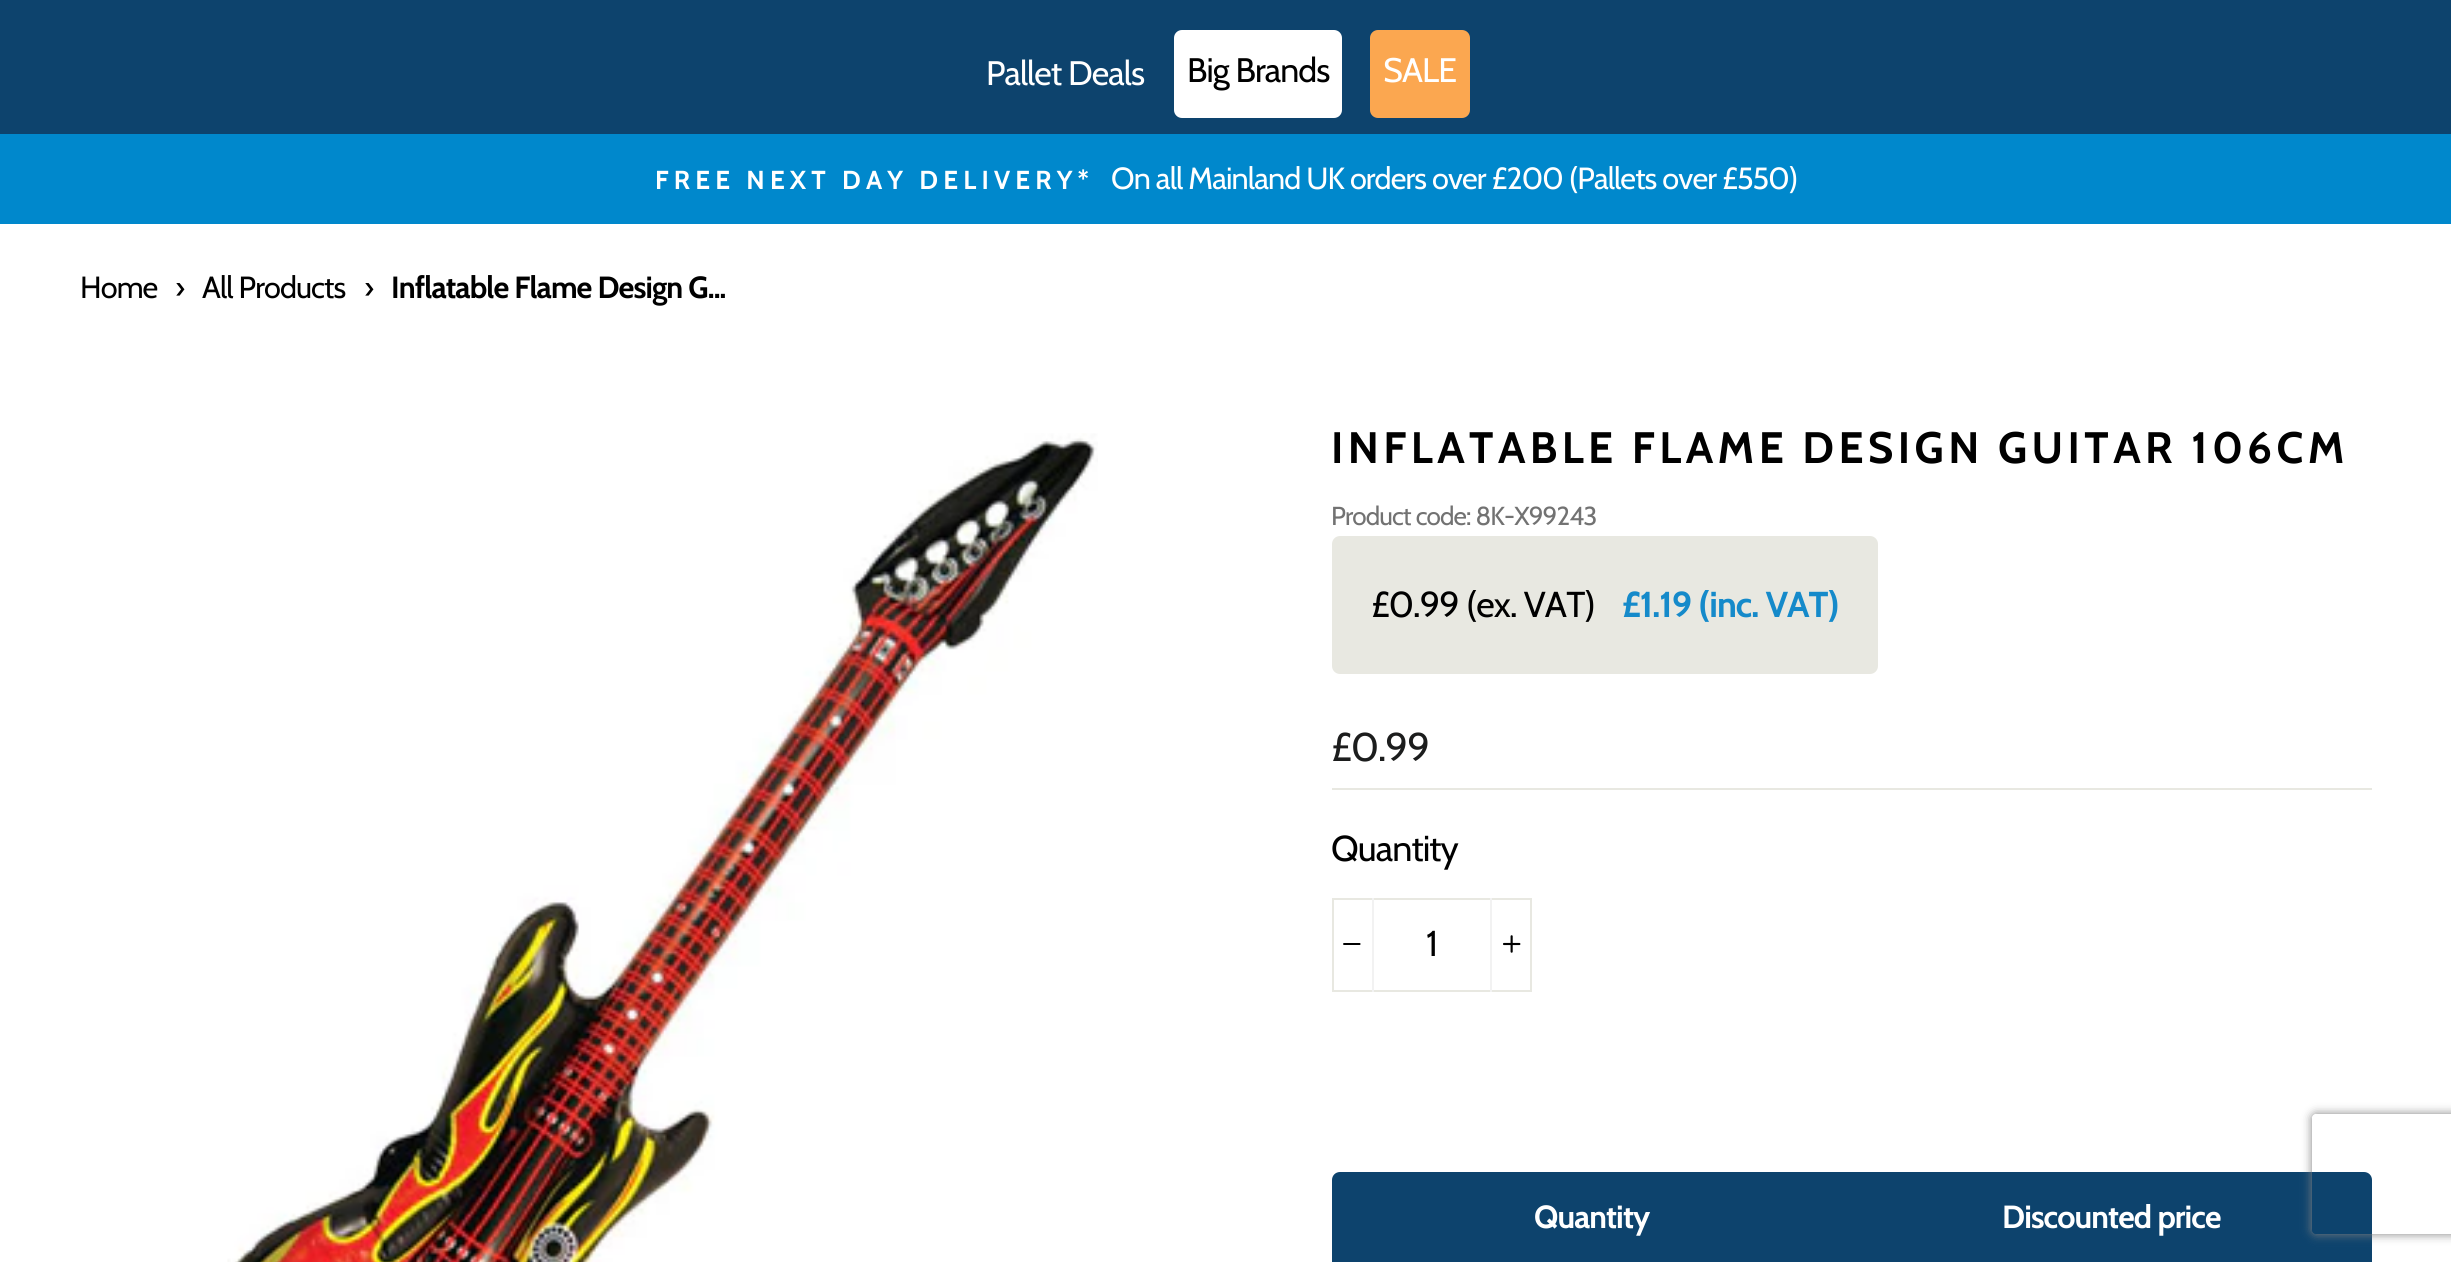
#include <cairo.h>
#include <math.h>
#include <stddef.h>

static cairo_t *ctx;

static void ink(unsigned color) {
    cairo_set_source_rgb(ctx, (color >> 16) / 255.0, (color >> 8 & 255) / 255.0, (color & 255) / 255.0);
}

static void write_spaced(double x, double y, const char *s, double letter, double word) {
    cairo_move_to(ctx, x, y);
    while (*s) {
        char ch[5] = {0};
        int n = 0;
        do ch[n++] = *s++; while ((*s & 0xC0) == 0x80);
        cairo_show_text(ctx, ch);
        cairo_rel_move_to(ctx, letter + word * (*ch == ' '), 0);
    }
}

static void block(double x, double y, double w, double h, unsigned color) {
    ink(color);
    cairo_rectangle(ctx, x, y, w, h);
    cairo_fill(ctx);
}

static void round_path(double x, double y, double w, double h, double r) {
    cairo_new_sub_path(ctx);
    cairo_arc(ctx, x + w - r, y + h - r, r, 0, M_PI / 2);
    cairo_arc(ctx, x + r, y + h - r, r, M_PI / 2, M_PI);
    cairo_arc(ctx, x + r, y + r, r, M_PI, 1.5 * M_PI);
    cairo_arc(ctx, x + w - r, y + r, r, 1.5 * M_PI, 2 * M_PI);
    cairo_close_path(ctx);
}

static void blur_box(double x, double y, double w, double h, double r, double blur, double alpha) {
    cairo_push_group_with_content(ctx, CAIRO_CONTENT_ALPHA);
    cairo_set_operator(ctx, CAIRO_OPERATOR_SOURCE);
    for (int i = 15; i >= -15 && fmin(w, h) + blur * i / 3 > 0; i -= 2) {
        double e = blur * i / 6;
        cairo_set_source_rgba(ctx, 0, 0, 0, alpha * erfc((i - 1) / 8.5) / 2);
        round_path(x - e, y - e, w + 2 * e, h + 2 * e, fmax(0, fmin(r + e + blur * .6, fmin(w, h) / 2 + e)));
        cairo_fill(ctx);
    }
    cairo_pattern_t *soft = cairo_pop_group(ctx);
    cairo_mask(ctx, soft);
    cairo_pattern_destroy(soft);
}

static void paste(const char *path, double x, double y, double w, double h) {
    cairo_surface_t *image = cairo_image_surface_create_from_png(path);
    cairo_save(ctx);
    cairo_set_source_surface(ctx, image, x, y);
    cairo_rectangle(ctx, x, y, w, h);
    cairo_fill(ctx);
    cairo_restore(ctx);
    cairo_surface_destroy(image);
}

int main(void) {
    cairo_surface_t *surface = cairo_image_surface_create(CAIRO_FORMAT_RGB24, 2451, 1262);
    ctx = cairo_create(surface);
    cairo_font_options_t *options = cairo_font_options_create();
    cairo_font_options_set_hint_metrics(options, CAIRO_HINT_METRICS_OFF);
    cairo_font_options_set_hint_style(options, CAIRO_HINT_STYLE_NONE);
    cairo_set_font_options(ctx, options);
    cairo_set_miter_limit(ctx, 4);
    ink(0xffffff);
    cairo_paint(ctx);
    block(0, 0, 2451, 134, 0x0d436d);
    cairo_select_font_face(ctx, "Cabin", CAIRO_FONT_SLANT_NORMAL, CAIRO_FONT_WEIGHT_NORMAL);
    cairo_set_font_size(ctx, 34);
    ink(0xffffff);
    write_spaced(986, 85, "Pallet Deals", -0.9, 0);
    round_path(1174, 30, 168, 88, 8);
    cairo_fill(ctx);
    ink(0x000000);
    write_spaced(1187, 82, "Big Brands", -0.9, 0);
    ink(0xfba750);
    round_path(1370, 30, 100, 88, 8);
    cairo_fill(ctx);
    ink(0xffffff);
    write_spaced(1383, 82, "SALE", -0.9, 0);
    block(0, 134, 2451, 90, 0x0088cc);
    cairo_select_font_face(ctx, "Cabin", CAIRO_FONT_SLANT_NORMAL, CAIRO_FONT_WEIGHT_BOLD);
    cairo_set_font_size(ctx, 26);
    ink(0xffffff);
    write_spaced(655, 189, "FREE NEXT DAY DELIVERY*", 5.2, 0);
    cairo_select_font_face(ctx, "Cabin", CAIRO_FONT_SLANT_NORMAL, CAIRO_FONT_WEIGHT_NORMAL);
    cairo_set_font_size(ctx, 30.6);
    write_spaced(1111, 189, "On all Mainland UK orders over £200 (Pallets over £550)", -0.9, 0);
    ink(0x000000);
    write_spaced(80, 298, "Home", -0.9, 0);
    write_spaced(175, 298, "›", -0.9, 0);
    write_spaced(202, 298, "All Products", -0.9, 0);
    write_spaced(364, 298, "›", -0.9, 0);
    cairo_select_font_face(ctx, "Cabin", CAIRO_FONT_SLANT_NORMAL, CAIRO_FONT_WEIGHT_BOLD);
    write_spaced(391, 298, "Inflatable Flame Design G...", -0.9, 0);
    paste("pic1.png", 227, 433, 871, 829);
    cairo_set_font_size(ctx, 44);
    write_spaced(1331, 463, "INFLATABLE FLAME DESIGN GUITAR 106CM", 4.4, 0);
    cairo_select_font_face(ctx, "Cabin", CAIRO_FONT_SLANT_NORMAL, CAIRO_FONT_WEIGHT_NORMAL);
    cairo_set_font_size(ctx, 26);
    ink(0x727272);
    write_spaced(1331, 525, "Product code: 8K-X99243", -0.9, 0);
    ink(0xe8e8e1);
    round_path(1332, 536, 546, 138, 8);
    cairo_fill(ctx);
    cairo_set_font_size(ctx, 36);
    ink(0x000000);
    write_spaced(1371, 617, "£0.99 (ex. VAT)", -0.9, 0);
    cairo_select_font_face(ctx, "Cabin", CAIRO_FONT_SLANT_NORMAL, CAIRO_FONT_WEIGHT_BOLD);
    ink(0x158aca);
    write_spaced(1622, 617, "£1.19 (inc. VAT)", -0.9, 0);
    cairo_select_font_face(ctx, "Cabin", CAIRO_FONT_SLANT_NORMAL, CAIRO_FONT_WEIGHT_NORMAL);
    cairo_set_font_size(ctx, 40);
    ink(0x1c1d1d);
    write_spaced(1331, 761, "£0.99", -0.9, 0);
    block(1332, 788, 1040, 2, 0xe8e8e1);
    cairo_set_font_size(ctx, 36);
    ink(0x000000);
    write_spaced(1331, 861, "Quantity", -0.9, 0);
    cairo_rectangle(ctx, 1333, 899, 198, 92);
    ink(0xe8e8e1);
    cairo_stroke(ctx);
    block(1372, 898, 2, 94, 0xf2f2f2);
    paste("pic2.png", 1343, 943, 18, 2);
    ink(0x000000);
    write_spaced(1426, 956, "1", -0.9, 0);
    block(1490, 898, 2, 94, 0xf2f2f2);
    paste("pic3.png", 1503, 935, 18, 18);
    ink(0x0d436d);
    cairo_new_path(ctx);
    cairo_move_to(ctx, 1340, 1172);
    cairo_line_to(ctx, 1852, 1172);
    cairo_line_to(ctx, 1852, 1262);
    cairo_line_to(ctx, 1332, 1262);
    cairo_line_to(ctx, 1332, 1180);
    cairo_curve_to(ctx, 1332, 1175.5, 1335.5, 1172, 1340, 1172);
    cairo_close_path(ctx);
    cairo_fill(ctx);
    cairo_select_font_face(ctx, "Cabin", CAIRO_FONT_SLANT_NORMAL, CAIRO_FONT_WEIGHT_BOLD);
    cairo_set_font_size(ctx, 32);
    ink(0xffffff);
    write_spaced(1534, 1228, "Quantity", -0.9, 0);
    ink(0x0d436d);
    cairo_new_path(ctx);
    cairo_move_to(ctx, 1852, 1172);
    cairo_line_to(ctx, 2364, 1172);
    cairo_curve_to(ctx, 2368.5, 1172, 2372, 1175.5, 2372, 1180);
    cairo_line_to(ctx, 2372, 1262);
    cairo_line_to(ctx, 1852, 1262);
    cairo_close_path(ctx);
    cairo_fill(ctx);
    ink(0xffffff);
    write_spaced(2002, 1228, "Discounted price", -0.9, 0);
    cairo_save(ctx);
    cairo_set_fill_rule(ctx, CAIRO_FILL_RULE_EVEN_ODD);
    cairo_new_path(ctx);
    cairo_move_to(ctx, 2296, 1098);
    cairo_line_to(ctx, 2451, 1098);
    cairo_line_to(ctx, 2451, 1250);
    cairo_line_to(ctx, 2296, 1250);
    cairo_close_path(ctx);
    cairo_move_to(ctx, 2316, 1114);
    cairo_line_to(ctx, 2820, 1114);
    cairo_curve_to(ctx, 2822, 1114, 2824, 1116, 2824, 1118);
    cairo_line_to(ctx, 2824, 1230);
    cairo_curve_to(ctx, 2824, 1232, 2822, 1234, 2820, 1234);
    cairo_line_to(ctx, 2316, 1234);
    cairo_curve_to(ctx, 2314, 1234, 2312, 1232, 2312, 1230);
    cairo_line_to(ctx, 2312, 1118);
    cairo_curve_to(ctx, 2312, 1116, 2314, 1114, 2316, 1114);
    cairo_close_path(ctx);
    cairo_clip(ctx);
    ink(0x808080);
    blur_box(2312, 1114, 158, 120, 4, 5, 1);
    cairo_restore(ctx);
    cairo_surface_write_to_png(surface, "screenshot.png");
    cairo_font_options_destroy(options);
    cairo_destroy(ctx);
    cairo_surface_destroy(surface);
    return 0;
}
